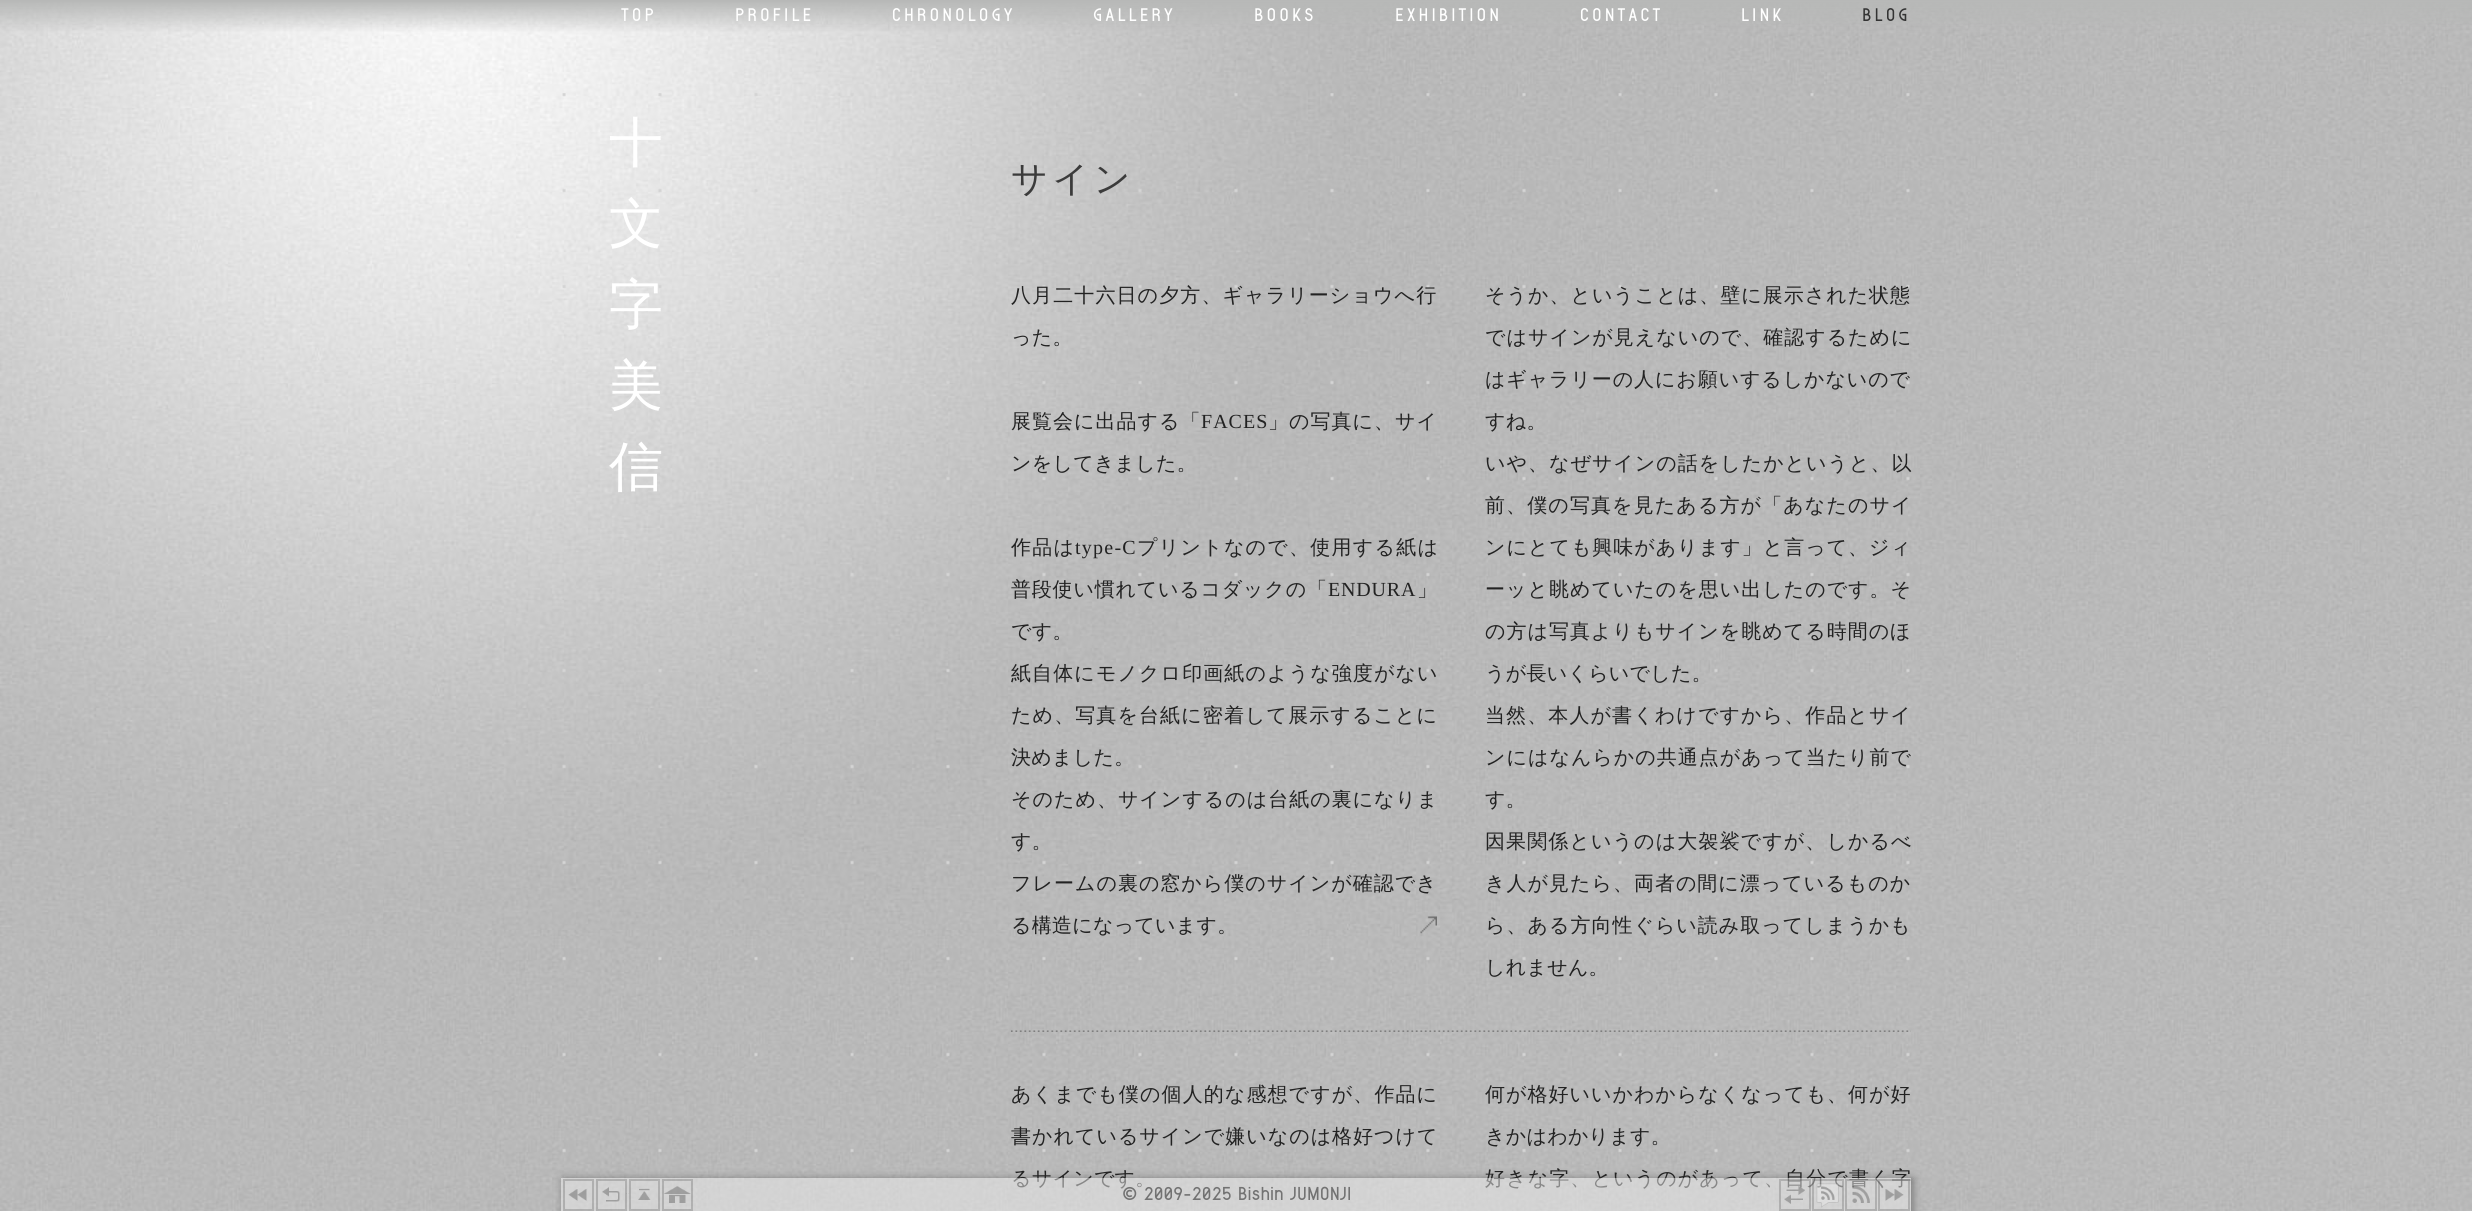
#include <cairo.h>
#include <math.h>
#include <stddef.h>

typedef struct { const char *family; double size; int italic, bold; unsigned color; } style_t;
static cairo_t *ctx;

static void ink(unsigned color) {
    cairo_set_source_rgb(ctx, (color >> 16) / 255.0, (color >> 8 & 255) / 255.0, (color & 255) / 255.0);
}

static void write(double x, double y, const char *s, const style_t *st) {
    cairo_select_font_face(ctx, st->family, st->italic ? CAIRO_FONT_SLANT_ITALIC : CAIRO_FONT_SLANT_NORMAL,
        st->bold ? CAIRO_FONT_WEIGHT_BOLD : CAIRO_FONT_WEIGHT_NORMAL);
    cairo_set_font_size(ctx, st->size);
    ink(st->color);
    cairo_move_to(ctx, x, y);
    cairo_show_text(ctx, s);
}

static void write_spaced(double x, double y, const char *s, double letter, double word) {
    cairo_move_to(ctx, x, y);
    while (*s) {
        char ch[5] = {0};
        int n = 0;
        do ch[n++] = *s++; while ((*s & 0xC0) == 0x80);
        cairo_show_text(ctx, ch);
        cairo_rel_move_to(ctx, letter + word * (*ch == ' '), 0);
    }
}

static void block(double x, double y, double w, double h, unsigned color) {
    ink(color);
    cairo_rectangle(ctx, x, y, w, h);
    cairo_fill(ctx);
}

static void round_path(double x, double y, double w, double h, double r) {
    cairo_new_sub_path(ctx);
    cairo_arc(ctx, x + w - r, y + h - r, r, 0, M_PI / 2);
    cairo_arc(ctx, x + r, y + h - r, r, M_PI / 2, M_PI);
    cairo_arc(ctx, x + r, y + r, r, M_PI, 1.5 * M_PI);
    cairo_arc(ctx, x + w - r, y + r, r, 1.5 * M_PI, 2 * M_PI);
    cairo_close_path(ctx);
}

static void blur_box(double x, double y, double w, double h, double r, double blur, double alpha) {
    cairo_push_group_with_content(ctx, CAIRO_CONTENT_ALPHA);
    cairo_set_operator(ctx, CAIRO_OPERATOR_SOURCE);
    for (int i = 15; i >= -15 && fmin(w, h) + blur * i / 3 > 0; i -= 2) {
        double e = blur * i / 6;
        cairo_set_source_rgba(ctx, 0, 0, 0, alpha * erfc((i - 1) / 8.5) / 2);
        round_path(x - e, y - e, w + 2 * e, h + 2 * e, fmax(0, fmin(r + e + blur * .6, fmin(w, h) / 2 + e)));
        cairo_fill(ctx);
    }
    cairo_pattern_t *soft = cairo_pop_group(ctx);
    cairo_mask(ctx, soft);
    cairo_pattern_destroy(soft);
}

static void paste(const char *path, double x, double y, double w, double h) {
    cairo_surface_t *image = cairo_image_surface_create_from_png(path);
    cairo_save(ctx);
    cairo_set_source_surface(ctx, image, x, y);
    cairo_rectangle(ctx, x, y, w, h);
    cairo_fill(ctx);
    cairo_restore(ctx);
    cairo_surface_destroy(image);
}

static const style_t s1 = {"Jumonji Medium", 20, 0, 0, 0x727272};

int main(void) {
    cairo_surface_t *surface = cairo_image_surface_create(CAIRO_FORMAT_RGB24, 2472, 1211);
    ctx = cairo_create(surface);
    cairo_font_options_t *options = cairo_font_options_create();
    cairo_font_options_set_hint_metrics(options, CAIRO_HINT_METRICS_OFF);
    cairo_font_options_set_hint_style(options, CAIRO_HINT_STYLE_NONE);
    cairo_set_font_options(ctx, options);
    cairo_set_miter_limit(ctx, 4);
    cairo_pattern_t *gradient;
    ink(0xffffff);
    cairo_paint(ctx);
    paste("pic1.png", 0, 2, 2472, 1209);
    paste("pic2.png", 0, 2, 1350, 928);
    block(0, 0, 2472, 2, 0xc0c0c0);
    gradient = cairo_pattern_create_linear(1236, 0, 1236, 35);
    cairo_pattern_add_color_stop_rgba(gradient, 0, 0.718, 0.722, 0.718, 1);
    cairo_pattern_add_color_stop_rgba(gradient, 0.95, 0.718, 0.722, 0.718, 0);
    cairo_set_source(ctx, gradient);
    cairo_pattern_destroy(gradient);
    cairo_rectangle(ctx, 0, 0, 2472, 32);
    cairo_fill(ctx);
    cairo_select_font_face(ctx, "Jumonji Medium", CAIRO_FONT_SLANT_NORMAL, CAIRO_FONT_WEIGHT_NORMAL);
    cairo_set_font_size(ctx, 19.5);
    ink(0xffffff);
    write_spaced(621, 21, "TOP", 3, 0);
    write_spaced(735, 21, "PROFILE", 3, 0);
    write_spaced(892, 21, "CHRONOLOGY", 3, 0);
    write_spaced(1093, 21, "GALLERY", 3, 0);
    write_spaced(1254, 21, "BOOKS", 3, 0);
    write_spaced(1395, 21, "EXHIBITION", 3, 0);
    write_spaced(1580, 21, "CONTACT", 3, 0);
    write_spaced(1741, 21, "LINK", 3, 0);
    ink(0x333333);
    write_spaced(1862, 21, "BLOG", 3, 0);
    paste("pic3.png", 562, 93, 1348, 1060);
    cairo_select_font_face(ctx, "WenQuanYi Zen Hei Medium", CAIRO_FONT_SLANT_NORMAL, CAIRO_FONT_WEIGHT_NORMAL);
    cairo_set_font_size(ctx, 54);
    ink(0xffffff);
    write_spaced(609, 161, "十", 18, 0);
    write_spaced(609, 242, "文", 18, 0);
    write_spaced(609, 323, "字", 18, 0);
    write_spaced(609, 404, "美", 18, 0);
    write_spaced(609, 485, "信", 18, 0);
    cairo_set_font_size(ctx, 36);
    ink(0x3b3b3b);
    write_spaced(1011, 191, "サイン", 4.5, 0);
    paste("pic4.png", 1420, 916, 17, 18);
    cairo_set_font_size(ctx, 20);
    ink(0x222222);
    write_spaced(1011, 302, "八月二十六日の夕方、ギャラリーショウへ行", 1.1, 0);
    write_spaced(1011, 344, "った。", 0.25, 0);
    write_spaced(1011, 428, "展覧会に出品する「", 1, 0);
    cairo_select_font_face(ctx, "Liberation Serif", CAIRO_FONT_SLANT_NORMAL, CAIRO_FONT_WEIGHT_NORMAL);
    write_spaced(1201, 428, "FACES", 1, 0);
    cairo_select_font_face(ctx, "WenQuanYi Zen Hei Medium", CAIRO_FONT_SLANT_NORMAL, CAIRO_FONT_WEIGHT_NORMAL);
    write_spaced(1268, 428, "」の写真に、サイ", 1, 0);
    write_spaced(1011, 470, "ンをしてきました。", 0.25, 0);
    write_spaced(1011, 554, "作品は", 1.25, 0);
    cairo_select_font_face(ctx, "Liberation Serif", CAIRO_FONT_SLANT_NORMAL, CAIRO_FONT_WEIGHT_NORMAL);
    write_spaced(1075, 554, "type-C", 1.25, 0);
    cairo_select_font_face(ctx, "WenQuanYi Zen Hei Medium", CAIRO_FONT_SLANT_NORMAL, CAIRO_FONT_WEIGHT_NORMAL);
    write_spaced(1137, 554, "プリントなので、使用する紙は", 1.25, 0);
    write_spaced(1011, 596, "普段使い慣れているコダックの「", 0.8, 0);
    cairo_select_font_face(ctx, "Liberation Serif", CAIRO_FONT_SLANT_NORMAL, CAIRO_FONT_WEIGHT_NORMAL);
    write_spaced(1328, 596, "ENDURA", 0.8, 0);
    cairo_select_font_face(ctx, "WenQuanYi Zen Hei Medium", CAIRO_FONT_SLANT_NORMAL, CAIRO_FONT_WEIGHT_NORMAL);
    write_spaced(1417, 596, "」", 0.8, 0);
    write_spaced(1011, 638, "です。", 0.25, 0);
    write_spaced(1011, 680, "紙自体にモノクロ印画紙のような強度がない", 1.1, 0);
    write_spaced(1011, 722, "ため、写真を台紙に密着して展示することに", 1.1, 0);
    write_spaced(1011, 764, "決めました。", 0.25, 0);
    write_spaced(1011, 806, "そのため、サインするのは台紙の裏になりま", 1, 0);
    write_spaced(1011, 848, "す。", 0.25, 0);
    write_spaced(1011, 890, "フレームの裏の窓から僕のサインが確認でき", 1, 0);
    write_spaced(1011, 932, "る構造になっています。", 0.25, 0);
    write_spaced(1485, 302, "そうか、ということは、壁に展示された状態", 1, 0);
    write_spaced(1485, 344, "ではサインが見えないので、確認するために", 1, 0);
    write_spaced(1485, 386, "はギャラリーの人にお願いするしかないので", 0.9, 0);
    write_spaced(1485, 428, "すね。", 0.25, 0);
    write_spaced(1485, 470, "いや、なぜサインの話をしたかというと、以", 1, 0);
    write_spaced(1485, 512, "前、僕の写真を見たある方が「あなたのサイ", 1.1, 0);
    write_spaced(1485, 554, "ンにとても興味があります」と言って、ジィ", 1, 0);
    write_spaced(1485, 596, "ーッと眺めていたのを思い出したのです。そ", 1, 0);
    write_spaced(1485, 638, "の方は写真よりもサインを眺めてる時間のほ", 1, 0);
    write_spaced(1485, 680, "うが長いくらいでした。", 0.25, 0);
    write_spaced(1485, 722, "当然、本人が書くわけですから、作品とサイ", 1.1, 0);
    write_spaced(1485, 764, "ンにはなんらかの共通点があって当たり前で", 1, 0);
    write_spaced(1485, 806, "す。", 0.25, 0);
    write_spaced(1485, 848, "因果関係というのは大袈裟ですが、しかるべ", 1.1, 0);
    write_spaced(1485, 890, "き人が見たら、両者の間に漂っているものか", 1, 0);
    write_spaced(1485, 932, "ら、ある方向性ぐらい読み取ってしまうかも", 1, 0);
    write_spaced(1485, 974, "しれません。", 0.25, 0);
    paste("pic5.png", 1011, 1030, 900, 2);
    write_spaced(1011, 1101, "あくまでも僕の個人的な感想ですが、作品に", 1.1, 0);
    write_spaced(1011, 1143, "書かれているサインで嫌いなのは格好つけて", 1, 0);
    write_spaced(1011, 1185, "るサインです。", 0.25, 0);
    write_spaced(1485, 1101, "何が格好いいかわからなくなっても、何が好", 1, 0);
    write_spaced(1485, 1143, "きかはわかります。", 0.25, 0);
    write_spaced(1485, 1185, "好きな字、というのがあって、自分で書く字", 1.1, 0);
    cairo_save(ctx);
    cairo_set_fill_rule(ctx, CAIRO_FILL_RULE_EVEN_ODD);
    cairo_new_path(ctx);
    cairo_move_to(ctx, 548, 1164);
    cairo_line_to(ctx, 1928, 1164);
    cairo_line_to(ctx, 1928, 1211);
    cairo_line_to(ctx, 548, 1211);
    cairo_close_path(ctx);
    cairo_move_to(ctx, 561, 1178);
    cairo_line_to(ctx, 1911, 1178);
    cairo_line_to(ctx, 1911, 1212);
    cairo_line_to(ctx, 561, 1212);
    cairo_close_path(ctx);
    cairo_clip(ctx);
    ink(0x333333);
    blur_box(563, 1179, 1350, 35, 0, 4.5, 0.5);
    cairo_restore(ctx);
    cairo_set_source_rgba(ctx, 0.933, 0.933, 0.933, 0.5);
    cairo_rectangle(ctx, 561, 1178, 1350, 33);
    cairo_fill(ctx);
    paste("pic6.png", 568, 1189, 19, 12);
    cairo_rectangle(ctx, 564, 1180, 29, 30);
    cairo_set_source_rgba(ctx, 0.267, 0.267, 0.267, 0.25);
    cairo_stroke(ctx);
    paste("pic7.png", 602, 1187, 25, 15);
    cairo_rectangle(ctx, 597, 1180, 29, 30);
    cairo_stroke(ctx);
    paste("pic8.png", 628, 1188, 23, 12);
    cairo_rectangle(ctx, 630, 1180, 29, 30);
    cairo_stroke(ctx);
    paste("pic9.png", 664, 1186, 27, 17);
    cairo_rectangle(ctx, 663, 1180, 29, 30);
    cairo_stroke(ctx);
    write(1122, 1200, "© 2009-2025 Bishin JUMONJI", &s1);
    paste("pic10.png", 1784, 1186, 21, 18);
    cairo_rectangle(ctx, 1780, 1180, 30, 30);
    cairo_set_source_rgba(ctx, 0.267, 0.267, 0.267, 0.25);
    cairo_stroke(ctx);
    paste("pic11.png", 1816, 1183, 23, 25);
    cairo_rectangle(ctx, 1813, 1180, 30, 30);
    cairo_stroke(ctx);
    paste("pic12.png", 1852, 1185, 18, 18);
    cairo_rectangle(ctx, 1846, 1180, 30, 30);
    cairo_stroke(ctx);
    paste("pic13.png", 1885, 1189, 19, 12);
    cairo_rectangle(ctx, 1879, 1180, 30, 30);
    cairo_stroke(ctx);
    cairo_surface_write_to_png(surface, "screenshot.png");
    cairo_font_options_destroy(options);
    cairo_destroy(ctx);
    cairo_surface_destroy(surface);
    return 0;
}
